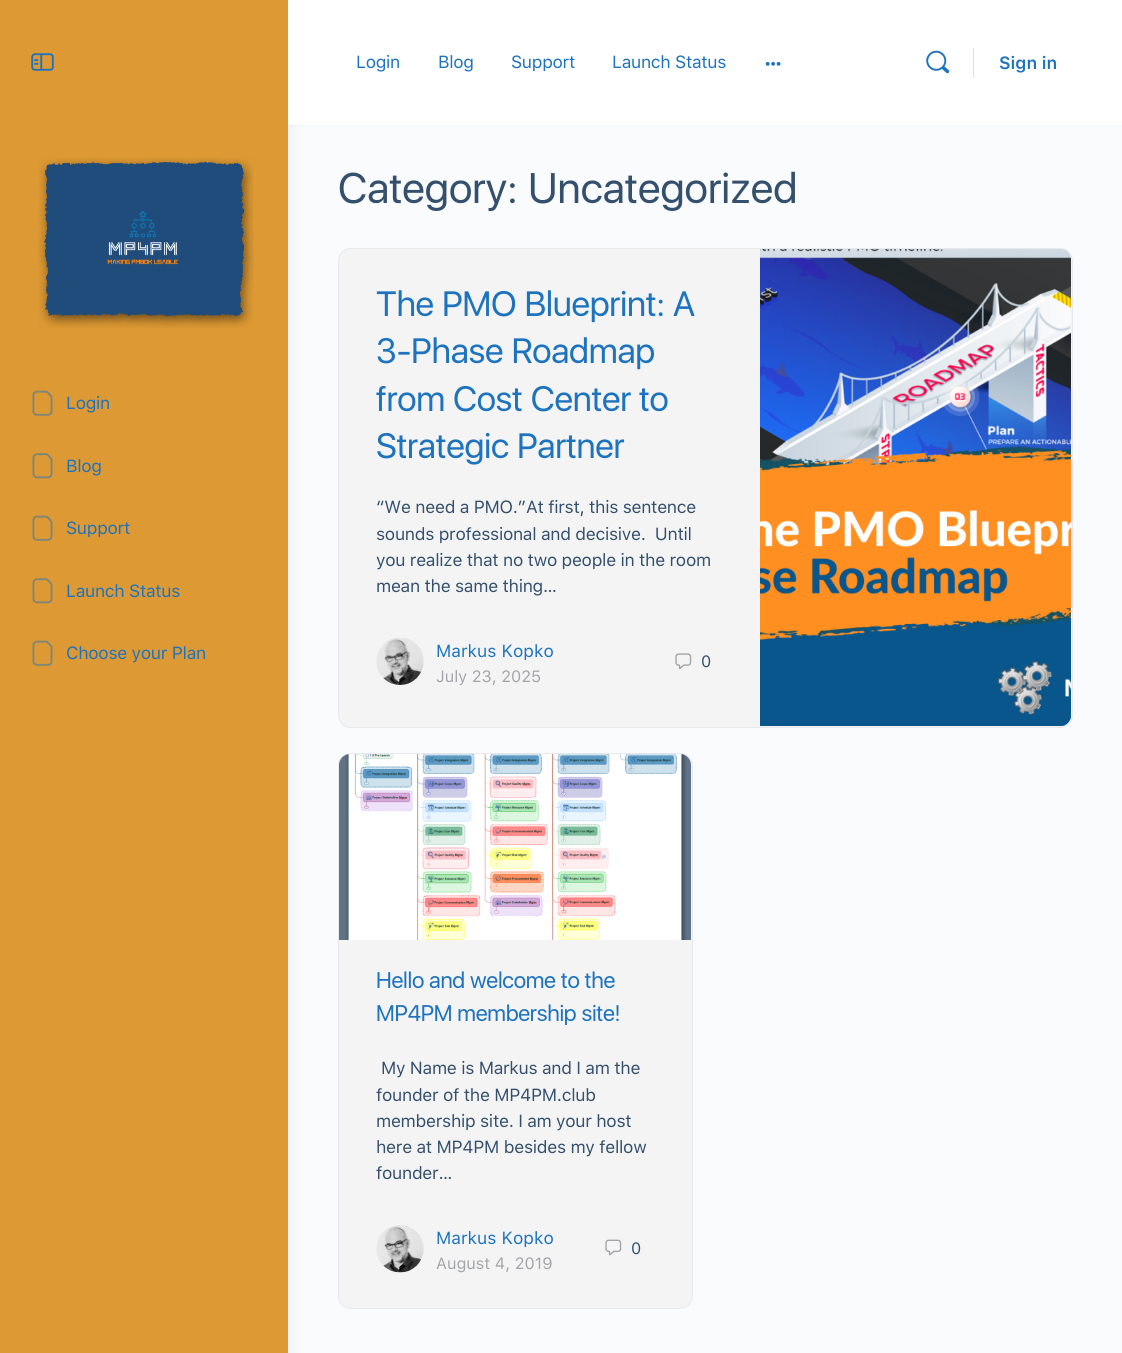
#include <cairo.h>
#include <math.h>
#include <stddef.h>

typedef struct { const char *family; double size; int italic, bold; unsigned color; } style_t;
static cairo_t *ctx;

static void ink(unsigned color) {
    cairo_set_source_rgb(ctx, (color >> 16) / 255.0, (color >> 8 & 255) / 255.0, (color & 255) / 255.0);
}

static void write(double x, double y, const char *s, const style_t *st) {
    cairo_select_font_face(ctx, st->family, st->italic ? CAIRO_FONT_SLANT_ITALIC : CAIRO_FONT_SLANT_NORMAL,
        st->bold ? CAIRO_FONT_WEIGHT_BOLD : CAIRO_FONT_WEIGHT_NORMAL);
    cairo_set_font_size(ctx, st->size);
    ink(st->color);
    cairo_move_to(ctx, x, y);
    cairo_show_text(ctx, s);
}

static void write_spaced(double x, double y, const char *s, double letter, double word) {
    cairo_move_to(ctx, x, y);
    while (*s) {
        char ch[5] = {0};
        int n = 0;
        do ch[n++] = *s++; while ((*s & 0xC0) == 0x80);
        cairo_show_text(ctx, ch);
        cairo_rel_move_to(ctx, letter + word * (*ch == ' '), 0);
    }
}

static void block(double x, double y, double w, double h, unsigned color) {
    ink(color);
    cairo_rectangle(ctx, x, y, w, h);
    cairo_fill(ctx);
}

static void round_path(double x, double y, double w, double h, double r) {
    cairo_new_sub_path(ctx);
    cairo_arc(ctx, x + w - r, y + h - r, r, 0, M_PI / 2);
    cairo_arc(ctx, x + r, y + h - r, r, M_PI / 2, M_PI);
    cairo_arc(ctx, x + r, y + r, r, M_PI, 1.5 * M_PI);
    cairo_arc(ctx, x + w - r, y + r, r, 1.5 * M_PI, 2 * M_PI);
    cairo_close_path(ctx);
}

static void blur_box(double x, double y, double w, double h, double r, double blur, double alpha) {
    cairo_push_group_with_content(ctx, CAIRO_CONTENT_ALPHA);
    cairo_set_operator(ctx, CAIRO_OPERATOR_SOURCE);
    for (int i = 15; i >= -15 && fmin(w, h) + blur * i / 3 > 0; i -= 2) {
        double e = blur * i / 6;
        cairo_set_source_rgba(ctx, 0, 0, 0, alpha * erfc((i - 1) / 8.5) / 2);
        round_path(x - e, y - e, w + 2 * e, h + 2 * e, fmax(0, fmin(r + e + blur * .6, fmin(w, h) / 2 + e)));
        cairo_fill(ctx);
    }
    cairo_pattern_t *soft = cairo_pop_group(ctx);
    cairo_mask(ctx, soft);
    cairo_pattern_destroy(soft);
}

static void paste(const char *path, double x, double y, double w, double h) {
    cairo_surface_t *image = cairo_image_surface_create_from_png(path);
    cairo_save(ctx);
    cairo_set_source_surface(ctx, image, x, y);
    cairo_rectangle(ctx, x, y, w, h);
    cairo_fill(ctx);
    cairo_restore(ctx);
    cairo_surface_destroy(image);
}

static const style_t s1 = {"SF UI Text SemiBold", 17.5, 0, 0, 0x1e73be};
static const style_t s2 = {"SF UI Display", 42.5, 0, 0, 0x34506d};
static const style_t s3 = {"SF UI Text", 17.5, 0, 0, 0x1e73be};
static const style_t s4 = {"SF UI Text", 16.25, 0, 0, 0xa3a5a9};
static const style_t s5 = {"SF UI Text", 16.25, 0, 0, 0x34506d};

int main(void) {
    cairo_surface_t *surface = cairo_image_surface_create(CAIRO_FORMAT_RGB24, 1122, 1353);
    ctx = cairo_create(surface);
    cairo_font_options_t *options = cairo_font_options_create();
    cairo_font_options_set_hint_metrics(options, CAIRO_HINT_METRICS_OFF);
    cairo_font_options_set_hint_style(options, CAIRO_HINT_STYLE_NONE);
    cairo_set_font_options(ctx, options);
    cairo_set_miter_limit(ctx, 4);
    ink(0xfafbfd);
    cairo_paint(ctx);
    ink(0x122b46);
    blur_box(0, 4, 288, 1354, 0, 8, 0.1);
    block(0, 0, 288, 1353, 0xdd9933);
    paste("pic1.png", 31, 53, 23, 18);
    paste("pic2.png", 38, 157, 216, 171);
    paste("pic3.png", 32, 390, 21, 26);
    cairo_select_font_face(ctx, "SF UI Text", CAIRO_FONT_SLANT_NORMAL, CAIRO_FONT_WEIGHT_NORMAL);
    cairo_set_font_size(ctx, 17.5);
    ink(0x1e73be);
    write_spaced(66, 409, "Login", -0.3, 0);
    paste("pic4.png", 32, 453, 21, 26);
    write_spaced(66, 472, "Blog", -0.3, 0);
    paste("pic3.png", 32, 515, 21, 26);
    write_spaced(66, 534, "Support", -0.3, 0);
    paste("pic4.png", 32, 578, 21, 26);
    write_spaced(66, 597, "Launch Status", -0.3, 0);
    paste("pic3.png", 32, 640, 21, 26);
    write_spaced(66, 659, "Choose your Plan", -0.3, 0);
    cairo_set_source_rgba(ctx, 0.545, 0.553, 0.616, 0.05);
    cairo_new_path(ctx);
    cairo_move_to(ctx, 288, 125);
    cairo_line_to(ctx, 288, 126);
    cairo_line_to(ctx, 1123, 126);
    cairo_line_to(ctx, 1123, 1);
    cairo_line_to(ctx, 1122, 1);
    cairo_line_to(ctx, 1122, 125);
    cairo_close_path(ctx);
    cairo_fill(ctx);
    block(288, 0, 834, 125, 0xffffff);
    ink(0x1e73be);
    write_spaced(356, 68, "Login", -0.3, 0);
    write_spaced(438, 68, "Blog", -0.3, 0);
    write_spaced(511, 68, "Support", -0.3, 0);
    write_spaced(612, 68, "Launch Status", -0.3, 0);
    paste("pic5.png", 765, 61, 16, 5);
    paste("pic6.png", 926, 50, 24, 24);
    block(973, 48, 1, 30, 0xd2e3f2);
    write(999, 69, "Sign in", &s1);
    write(338, 203, "Category: Uncategorized", &s2);
    ink(0xf4f4f4);
    round_path(338.5, 248.5, 734, 479, 12.5);
    cairo_fill_preserve(ctx);
    ink(0xe7e9ec);
    cairo_set_line_width(ctx, 1);
    cairo_stroke(ctx);
    cairo_set_font_size(ctx, 35);
    ink(0x1e73be);
    write_spaced(376, 316, "The PMO Blueprint: A", -0.3, 0);
    write_spaced(376, 363, "3-Phase Roadmap", -0.3, 0);
    write_spaced(376, 411, "from Cost Center to", -0.3, 0);
    write_spaced(376, 458, "Strategic Partner", -0.3, 0);
    cairo_select_font_face(ctx, "SF UI Text", CAIRO_FONT_SLANT_NORMAL, CAIRO_FONT_WEIGHT_NORMAL);
    cairo_set_font_size(ctx, 17.5);
    ink(0x34506d);
    write_spaced(376, 513, "“We need a PMO.”At first, this sentence", -0.3, 0);
    write_spaced(376, 540, "sounds professional and decisive.  Until", -0.3, 0);
    write_spaced(376, 566, "you realize that no two people in the room", -0.3, 0);
    write_spaced(376, 592, "mean the same thing…", -0.3, 0);
    paste("pic7.png", 376, 638, 48, 47);
    write(436, 657, "Markus Kopko", &s3);
    write(436, 682, "July 23, 2025", &s4);
    paste("pic8.png", 675, 653, 17, 17);
    write(701, 667, "0", &s5);
    paste("pic9.png", 760, 249, 311, 477);
    ink(0xf4f4f4);
    round_path(338.5, 753.5, 354, 555, 12.5);
    cairo_fill_preserve(ctx);
    ink(0xe7e9ec);
    cairo_stroke(ctx);
    ink(0x607387);
    cairo_new_path(ctx);
    cairo_move_to(ctx, 350, 754);
    cairo_line_to(ctx, 680, 754);
    cairo_curve_to(ctx, 686, 754, 691, 759, 691, 765);
    cairo_line_to(ctx, 691, 940);
    cairo_line_to(ctx, 339, 940);
    cairo_line_to(ctx, 339, 765);
    cairo_curve_to(ctx, 339, 759, 344, 754, 350, 754);
    cairo_close_path(ctx);
    cairo_fill(ctx);
    paste("pic10.png", 345, 753, 342, 187);
    cairo_select_font_face(ctx, "SF UI Display", CAIRO_FONT_SLANT_NORMAL, CAIRO_FONT_WEIGHT_NORMAL);
    cairo_set_font_size(ctx, 22.5);
    ink(0x1e73be);
    write_spaced(376, 988, "Hello and welcome to the", -0.3, 0);
    write_spaced(376, 1021, "MP4PM membership site!", -0.3, 0);
    cairo_select_font_face(ctx, "SF UI Text", CAIRO_FONT_SLANT_NORMAL, CAIRO_FONT_WEIGHT_NORMAL);
    cairo_set_font_size(ctx, 17.5);
    ink(0x34506d);
    write_spaced(381, 1074, "My Name is Markus and I am the", -0.3, 0);
    write_spaced(376, 1101, "founder of the MP4PM.club", -0.3, 0);
    write_spaced(376, 1127, "membership site. I am your host", -0.3, 0);
    write_spaced(376, 1153, "here at MP4PM besides my fellow", -0.3, 0);
    write_spaced(376, 1179, "founder…", -0.3, 0);
    paste("pic11.png", 376, 1225, 48, 48);
    write(436, 1244, "Markus Kopko", &s3);
    write(436, 1269, "August 4, 2019", &s4);
    paste("pic12.png", 605, 1239, 17, 17);
    write(631, 1254, "0", &s5);
    cairo_surface_write_to_png(surface, "screenshot.png");
    cairo_font_options_destroy(options);
    cairo_destroy(ctx);
    cairo_surface_destroy(surface);
    return 0;
}
